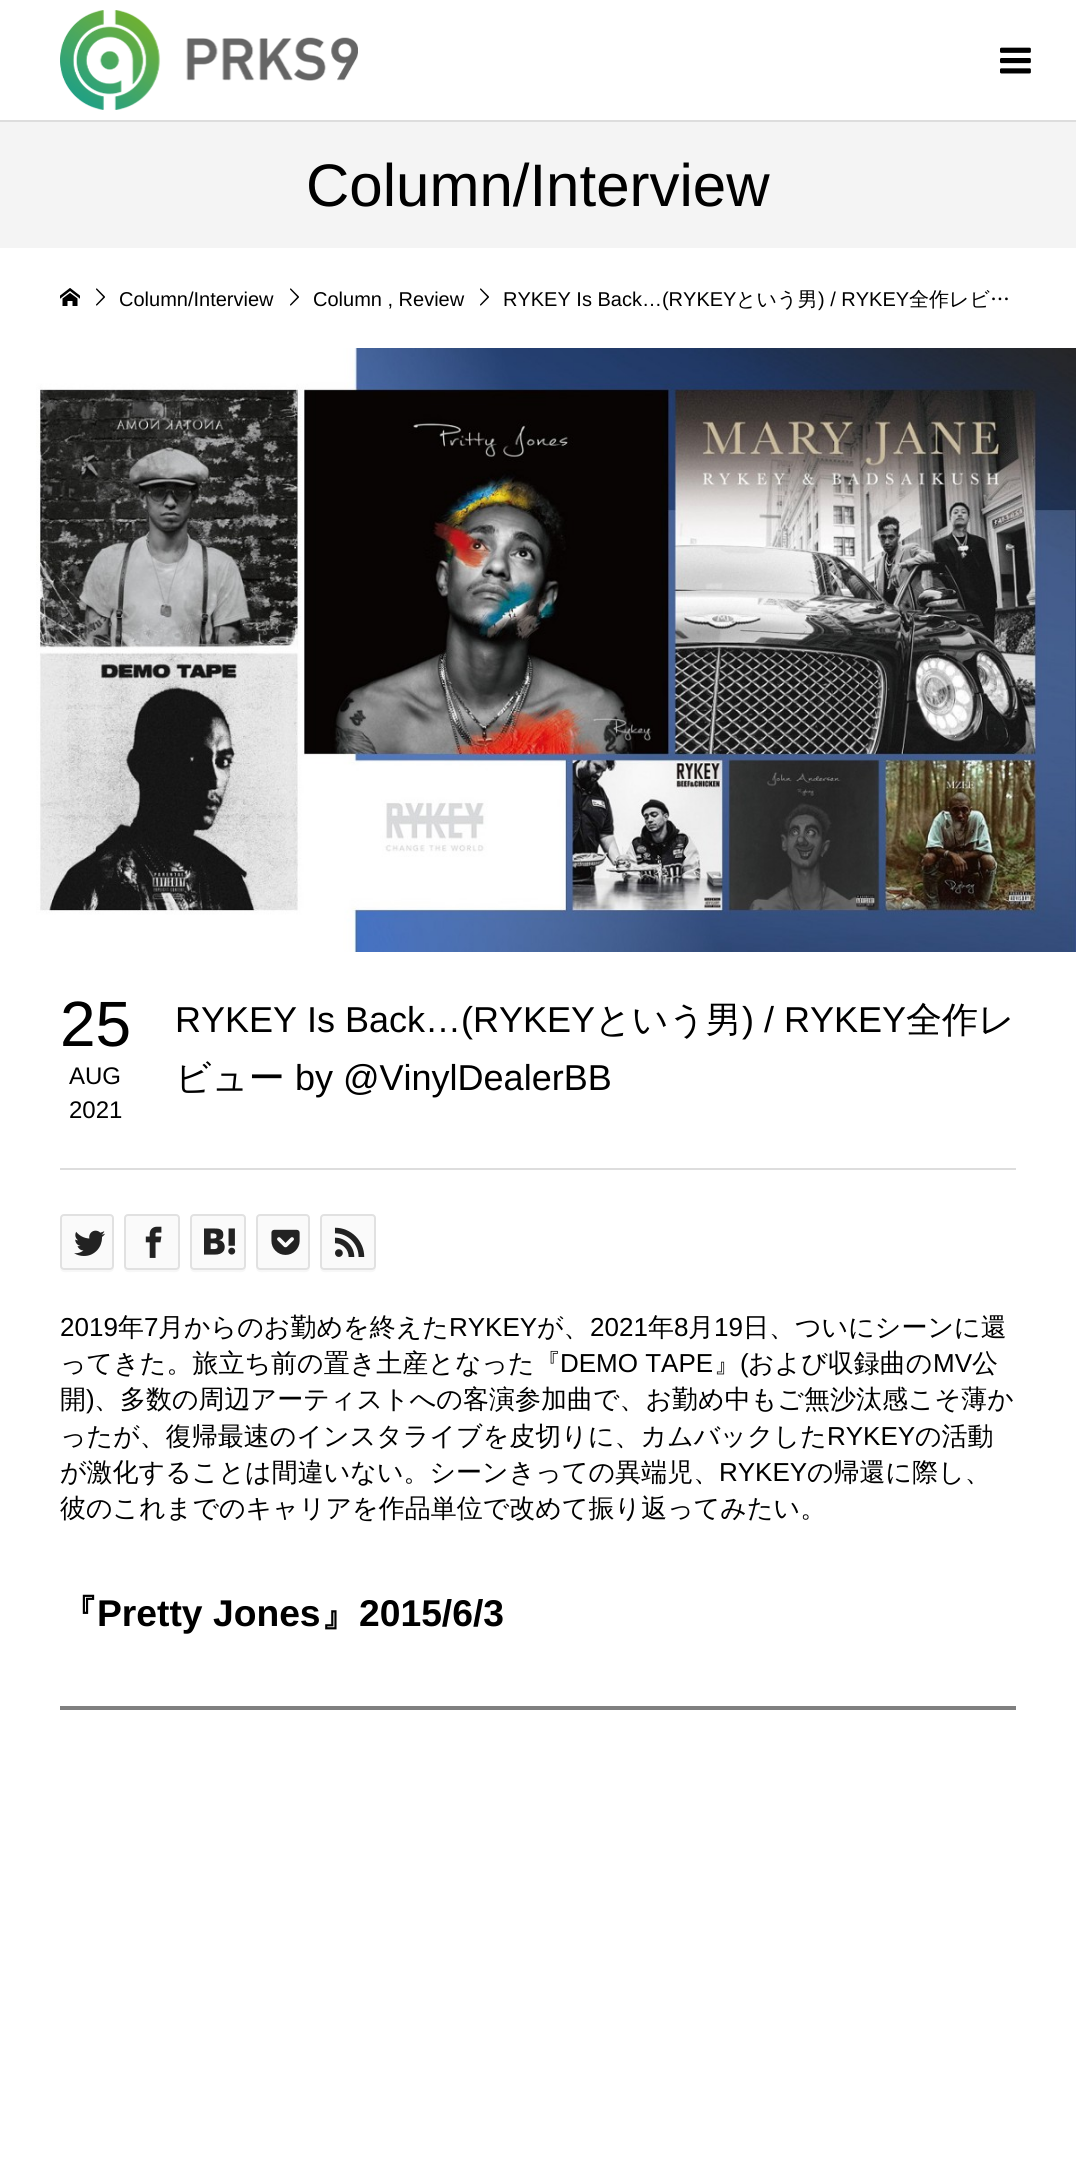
#include <cairo.h>
#include <math.h>
#include <stddef.h>

typedef struct { const char *family; double size; int italic, bold; unsigned color; } style_t;
static cairo_t *ctx;

static void ink(unsigned color) {
    cairo_set_source_rgb(ctx, (color >> 16) / 255.0, (color >> 8 & 255) / 255.0, (color & 255) / 255.0);
}

static void write(double x, double y, const char *s, const style_t *st) {
    cairo_select_font_face(ctx, st->family, st->italic ? CAIRO_FONT_SLANT_ITALIC : CAIRO_FONT_SLANT_NORMAL,
        st->bold ? CAIRO_FONT_WEIGHT_BOLD : CAIRO_FONT_WEIGHT_NORMAL);
    cairo_set_font_size(ctx, st->size);
    ink(st->color);
    cairo_move_to(ctx, x, y);
    cairo_show_text(ctx, s);
}

static void block(double x, double y, double w, double h, unsigned color) {
    ink(color);
    cairo_rectangle(ctx, x, y, w, h);
    cairo_fill(ctx);
}

static void round_path(double x, double y, double w, double h, double r) {
    cairo_new_sub_path(ctx);
    cairo_arc(ctx, x + w - r, y + h - r, r, 0, M_PI / 2);
    cairo_arc(ctx, x + r, y + h - r, r, M_PI / 2, M_PI);
    cairo_arc(ctx, x + r, y + r, r, M_PI, 1.5 * M_PI);
    cairo_arc(ctx, x + w - r, y + r, r, 1.5 * M_PI, 2 * M_PI);
    cairo_close_path(ctx);
}

static void paste(const char *path, double x, double y, double w, double h) {
    cairo_surface_t *image = cairo_image_surface_create_from_png(path);
    cairo_save(ctx);
    cairo_set_source_surface(ctx, image, x, y);
    cairo_rectangle(ctx, x, y, w, h);
    cairo_fill(ctx);
    cairo_restore(ctx);
    cairo_surface_destroy(image);
}

static const style_t s1 = {"Liberation Sans", 60, 0, 0, 0x000000};
static const style_t s2 = {"Liberation Sans", 20, 0, 0, 0x000000};
static const style_t s3 = {"WenQuanYi Zen Hei Medium", 20, 0, 0, 0x000000};
static const style_t s4 = {"Liberation Sans", 64, 0, 0, 0x000000};
static const style_t s5 = {"Liberation Sans", 24, 0, 0, 0x000000};
static const style_t s6 = {"Liberation Sans", 36, 0, 0, 0x000000};
static const style_t s7 = {"WenQuanYi Zen Hei Medium", 36, 0, 0, 0x000000};
static const style_t s8 = {"Liberation Sans", 26, 0, 0, 0x000000};
static const style_t s9 = {"WenQuanYi Zen Hei Medium", 26, 0, 0, 0x000000};
static const style_t s10 = {"WenQuanYi Zen Hei", 37.25, 0, 1, 0x000000};
static const style_t s11 = {"Liberation Sans", 37.25, 0, 1, 0x000000};

int main(void) {
    cairo_surface_t *surface = cairo_image_surface_create(CAIRO_FORMAT_RGB24, 1076, 2180);
    ctx = cairo_create(surface);
    cairo_font_options_t *options = cairo_font_options_create();
    cairo_font_options_set_hint_metrics(options, CAIRO_HINT_METRICS_OFF);
    cairo_font_options_set_hint_style(options, CAIRO_HINT_STYLE_NONE);
    cairo_set_font_options(ctx, options);
    cairo_set_miter_limit(ctx, 4);
    ink(0xffffff);
    cairo_paint(ctx);
    paste("pic1.png", 60, 10, 298, 100);
    paste("pic2.png", 1000, 47, 31, 27);
    block(0, 122, 1076, 126, 0xf4f4f4);
    block(0, 120, 1076, 2, 0xdddddd);
    write(306, 206, "Column/Interview", &s1);
    paste("pic3.png", 60, 288, 20, 18);
    paste("pic4.png", 96, 288, 9, 18);
    write(119, 306, "Column/Interview", &s2);
    paste("pic4.png", 290, 288, 9, 18);
    write(313, 306, "Column , Review", &s2);
    paste("pic4.png", 480, 288, 9, 18);
    write(503, 306, "RYKEY Is Back…(RYKEY", &s2);
    write(736, 306, "という男", &s3);
    write(818, 306, ") / RYKEY", &s2);
    write(909, 306, "全作レビ…", &s3);
    paste("pic5.png", 36, 348, 1040, 604);
    write(60, 1046, "25", &s4);
    write(69, 1084, "AUG", &s5);
    write(69, 1118, "2021", &s5);
    write(175, 1032, "RYKEY Is Back…(RYKEY", &s6);
    write(595, 1032, "という男", &s7);
    write(742, 1032, ") / RYKEY", &s6);
    write(906, 1032, "全作レ", &s7);
    write(175, 1090, "ビュー", &s7);
    write(295, 1090, "by @VinylDealerBB", &s6);
    block(60, 1168, 956, 2, 0xdddddd);
    ink(0xf7f7f7);
    cairo_new_path(ctx);
    cairo_move_to(ctx, 60, 1266);
    cairo_curve_to(ctx, 60, 1274, 65, 1272, 72, 1272);
    cairo_line_to(ctx, 102, 1272);
    cairo_curve_to(ctx, 109, 1272, 114, 1274, 114, 1266);
    cairo_curve_to(ctx, 114, 1268, 112, 1270, 110, 1270);
    cairo_line_to(ctx, 64, 1270);
    cairo_curve_to(ctx, 62, 1270, 60, 1268, 60, 1266);
    cairo_close_path(ctx);
    cairo_fill(ctx);
    ink(0xfafafa);
    round_path(61, 1215, 52, 54, 3);
    cairo_fill_preserve(ctx);
    ink(0xe1e1e1);
    cairo_stroke(ctx);
    paste("pic6.png", 74, 1230, 31, 26);
    ink(0xf7f7f7);
    cairo_new_path(ctx);
    cairo_move_to(ctx, 124, 1266);
    cairo_curve_to(ctx, 124, 1274, 129, 1272, 136, 1272);
    cairo_line_to(ctx, 168, 1272);
    cairo_curve_to(ctx, 175, 1272, 180, 1274, 180, 1266);
    cairo_curve_to(ctx, 180, 1268, 178, 1270, 176, 1270);
    cairo_line_to(ctx, 128, 1270);
    cairo_curve_to(ctx, 126, 1270, 124, 1268, 124, 1266);
    cairo_close_path(ctx);
    cairo_fill(ctx);
    ink(0xfafafa);
    round_path(125, 1215, 54, 54, 3);
    cairo_fill_preserve(ctx);
    ink(0xe1e1e1);
    cairo_stroke(ctx);
    paste("pic7.png", 145, 1226, 17, 32);
    ink(0xf7f7f7);
    cairo_new_path(ctx);
    cairo_move_to(ctx, 190, 1266);
    cairo_curve_to(ctx, 190, 1274, 195, 1272, 202, 1272);
    cairo_line_to(ctx, 234, 1272);
    cairo_curve_to(ctx, 241, 1272, 246, 1274, 246, 1266);
    cairo_curve_to(ctx, 246, 1268, 244, 1270, 242, 1270);
    cairo_line_to(ctx, 194, 1270);
    cairo_curve_to(ctx, 192, 1270, 190, 1268, 190, 1266);
    cairo_close_path(ctx);
    cairo_fill(ctx);
    ink(0xfafafa);
    round_path(191, 1215, 54, 54, 3);
    cairo_fill_preserve(ctx);
    ink(0xe1e1e1);
    cairo_stroke(ctx);
    paste("pic8.png", 204, 1228, 32, 27);
    ink(0xf7f7f7);
    cairo_new_path(ctx);
    cairo_move_to(ctx, 256, 1266);
    cairo_curve_to(ctx, 256, 1274, 261, 1272, 268, 1272);
    cairo_line_to(ctx, 298, 1272);
    cairo_curve_to(ctx, 305, 1272, 310, 1274, 310, 1266);
    cairo_curve_to(ctx, 310, 1268, 308, 1270, 306, 1270);
    cairo_line_to(ctx, 260, 1270);
    cairo_curve_to(ctx, 258, 1270, 256, 1268, 256, 1266);
    cairo_close_path(ctx);
    cairo_fill(ctx);
    ink(0xfafafa);
    round_path(257, 1215, 52, 54, 3);
    cairo_fill_preserve(ctx);
    ink(0xe1e1e1);
    cairo_stroke(ctx);
    paste("pic9.png", 271, 1229, 29, 26);
    ink(0xf7f7f7);
    cairo_new_path(ctx);
    cairo_move_to(ctx, 320, 1266);
    cairo_curve_to(ctx, 320, 1274, 325, 1272, 332, 1272);
    cairo_line_to(ctx, 364, 1272);
    cairo_curve_to(ctx, 371, 1272, 376, 1274, 376, 1266);
    cairo_curve_to(ctx, 376, 1268, 374, 1270, 372, 1270);
    cairo_line_to(ctx, 324, 1270);
    cairo_curve_to(ctx, 322, 1270, 320, 1268, 320, 1266);
    cairo_close_path(ctx);
    cairo_fill(ctx);
    ink(0xfafafa);
    round_path(321, 1215, 54, 54, 3);
    cairo_fill_preserve(ctx);
    ink(0xe1e1e1);
    cairo_stroke(ctx);
    paste("pic10.png", 334, 1227, 31, 30);
    write(60, 1336, "2019", &s8);
    write(118, 1336, "年", &s9);
    write(144, 1336, "7", &s8);
    write(158, 1336, "月からのお勤めを終えた", &s9);
    write(449, 1336, "RYKEY", &s8);
    write(537, 1336, "が、", &s9);
    write(590, 1336, "2021", &s8);
    write(648, 1336, "年", &s9);
    write(674, 1336, "8", &s8);
    write(688, 1336, "月", &s9);
    write(714, 1336, "19", &s8);
    write(743, 1336, "日、ついにシーンに還", &s9);
    write(60, 1372, "ってきた。旅立ち前の置き土産となった『", &s9);
    write(560, 1372, "DEMO TAPE", &s8);
    write(714, 1372, "』", &s9);
    write(740, 1372, "(", &s8);
    write(748, 1372, "および収録曲の", &s9);
    write(933, 1372, "MV", &s8);
    write(972, 1372, "公", &s9);
    write(60, 1408, "開", &s9);
    write(86, 1408, ")", &s8);
    write(94, 1408, "、多数の周辺アーティストへの客演参加曲で、お勤め中もご無沙汰感こそ薄か", &s9);
    write(60, 1445, "ったが、復帰最速のインスタライブを皮切りに、カムバックした", &s9);
    write(827, 1445, "RYKEY", &s8);
    write(915, 1445, "の活動", &s9);
    write(60, 1481, "が激化することは間違いない。シーンきっての異端児、", &s9);
    write(719, 1481, "RYKEY", &s8);
    write(807, 1481, "の帰還に際し、", &s9);
    write(60, 1517, "彼のこれまでのキャリアを作品単位で改めて振り返ってみたい。", &s9);
    write(60, 1626, "『", &s10);
    write(97, 1626, "Pretty Jones", &s11);
    write(321, 1626, "』", &s10);
    write(359, 1626, "2015/6/3", &s11);
    block(60, 1706, 956, 4, 0x808080);
    cairo_surface_write_to_png(surface, "screenshot.png");
    cairo_font_options_destroy(options);
    cairo_destroy(ctx);
    cairo_surface_destroy(surface);
    return 0;
}
